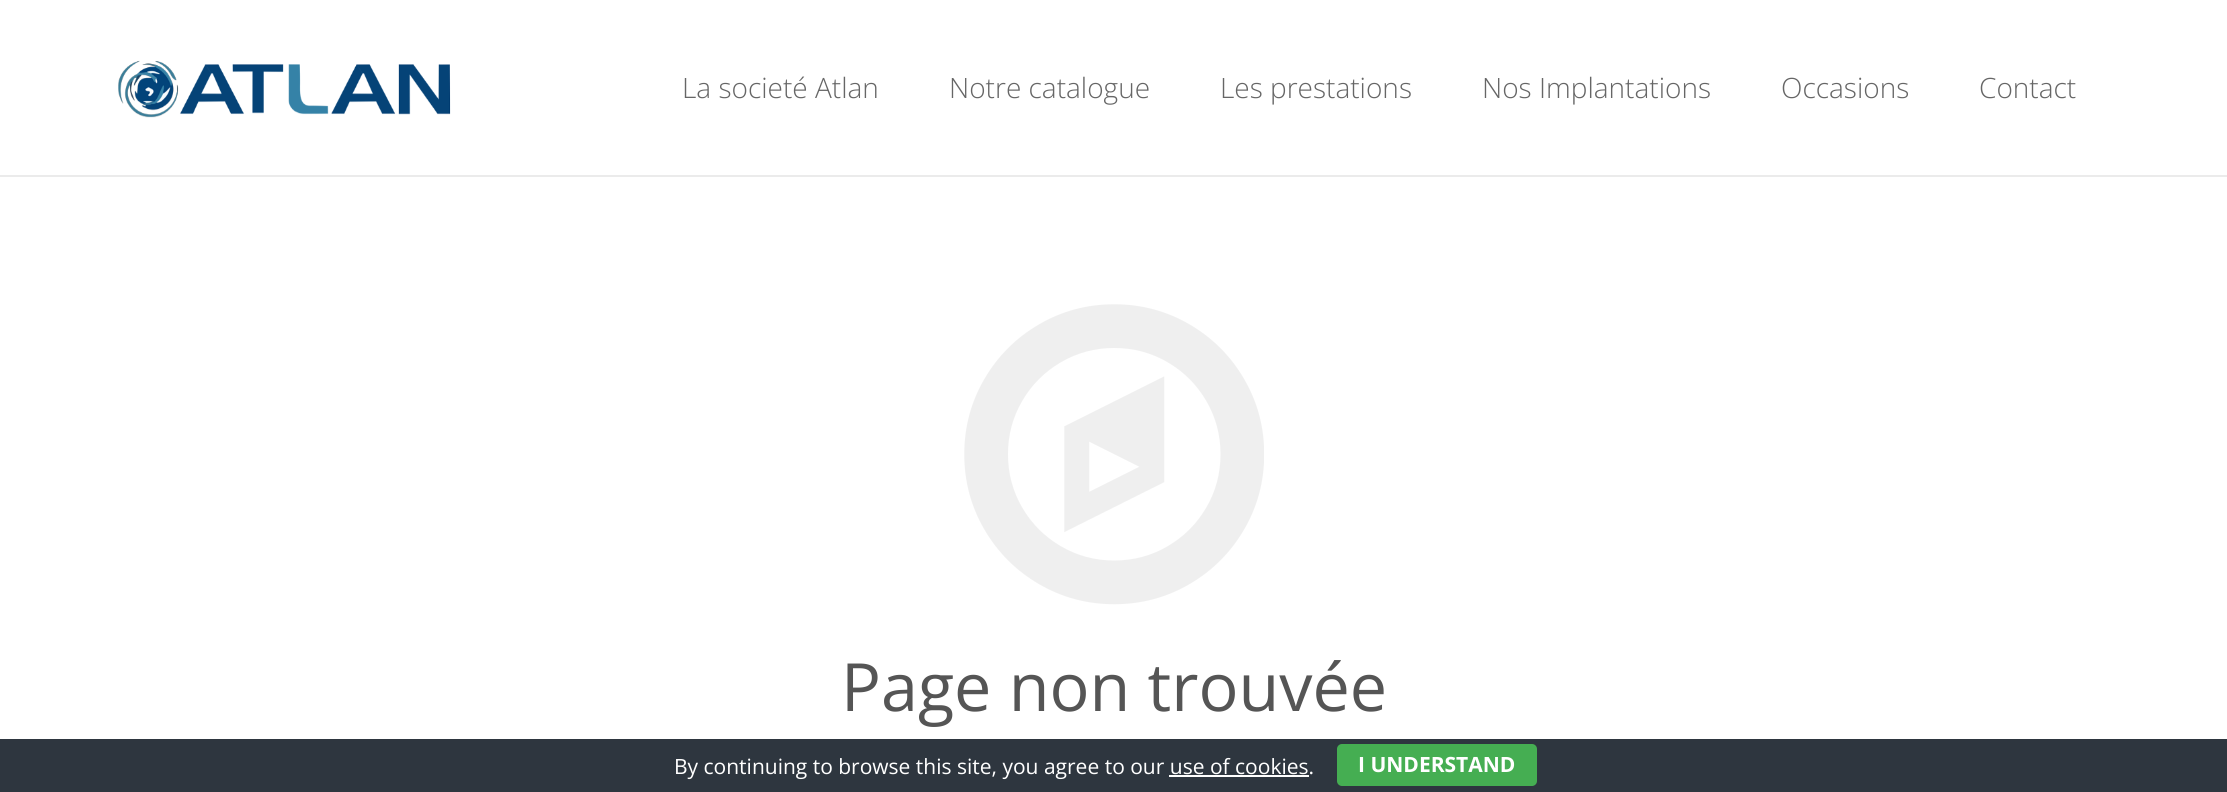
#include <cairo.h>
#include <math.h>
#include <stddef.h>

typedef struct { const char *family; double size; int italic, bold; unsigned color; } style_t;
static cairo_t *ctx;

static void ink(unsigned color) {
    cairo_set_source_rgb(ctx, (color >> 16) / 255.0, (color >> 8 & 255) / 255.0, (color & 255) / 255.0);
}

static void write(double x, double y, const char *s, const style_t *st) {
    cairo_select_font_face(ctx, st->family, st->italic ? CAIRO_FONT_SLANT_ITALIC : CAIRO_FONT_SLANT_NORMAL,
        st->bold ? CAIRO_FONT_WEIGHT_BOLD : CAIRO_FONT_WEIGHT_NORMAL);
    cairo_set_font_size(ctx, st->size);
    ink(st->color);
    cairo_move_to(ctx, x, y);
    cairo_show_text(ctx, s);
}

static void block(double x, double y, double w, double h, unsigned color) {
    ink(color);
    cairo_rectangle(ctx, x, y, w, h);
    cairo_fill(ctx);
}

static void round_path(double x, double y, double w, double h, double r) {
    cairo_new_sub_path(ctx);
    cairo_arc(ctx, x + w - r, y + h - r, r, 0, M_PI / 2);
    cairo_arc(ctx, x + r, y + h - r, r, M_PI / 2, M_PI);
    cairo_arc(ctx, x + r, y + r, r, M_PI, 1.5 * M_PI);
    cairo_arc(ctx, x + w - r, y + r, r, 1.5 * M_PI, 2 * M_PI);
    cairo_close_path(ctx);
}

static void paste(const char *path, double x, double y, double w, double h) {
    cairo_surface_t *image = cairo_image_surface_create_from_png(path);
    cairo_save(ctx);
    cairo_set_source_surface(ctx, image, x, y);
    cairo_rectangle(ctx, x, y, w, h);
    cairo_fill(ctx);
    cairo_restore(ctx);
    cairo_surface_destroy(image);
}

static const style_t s1 = {"Open Sans Light", 28, 0, 0, 0x666666};
static const style_t s2 = {"Open Sans", 66.5, 0, 0, 0x555555};
static const style_t s3 = {"Open Sans", 21, 0, 0, 0xffffff};
static const style_t s4 = {"Open Sans", 21, 0, 1, 0xffffff};

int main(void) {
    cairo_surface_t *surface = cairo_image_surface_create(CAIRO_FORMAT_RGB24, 2227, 792);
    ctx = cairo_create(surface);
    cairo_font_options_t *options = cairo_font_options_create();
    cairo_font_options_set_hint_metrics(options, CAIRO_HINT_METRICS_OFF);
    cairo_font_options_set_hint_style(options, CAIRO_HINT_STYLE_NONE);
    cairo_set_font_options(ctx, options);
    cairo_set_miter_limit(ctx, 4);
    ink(0xffffff);
    cairo_paint(ctx);
    ink(0xebebeb);
    cairo_new_path(ctx);
    cairo_move_to(ctx, 0, 175);
    cairo_line_to(ctx, 0, 177);
    cairo_line_to(ctx, 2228, 177);
    cairo_line_to(ctx, 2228, 2);
    cairo_line_to(ctx, 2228, 175);
    cairo_close_path(ctx);
    cairo_fill(ctx);
    paste("pic1.png", 118, 60, 333, 58);
    write(682, 98, "La societé Atlan", &s1);
    write(949, 98, "Notre catalogue", &s1);
    write(1220, 98, "Les prestations", &s1);
    write(1482, 98, "Nos Implantations", &s1);
    write(1781, 98, "Occasions", &s1);
    write(1979, 98, "Contact", &s1);
    paste("pic2.png", 964, 304, 300, 301);
    write(841, 711, "Page non trouvée", &s2);
    block(0, 739, 2227, 53, 0x2e363f);
    write(674, 774, "By continuing to browse this site, you agree to our use of cookies.", &s3);
    ink(0x45ae52);
    round_path(1337, 744, 200, 42, 5);
    cairo_fill(ctx);
    write(1358, 772, "I UNDERSTAND", &s4);
    block(1169, 775, 140, 2, 0xffffff);
    cairo_surface_write_to_png(surface, "screenshot.png");
    cairo_font_options_destroy(options);
    cairo_destroy(ctx);
    cairo_surface_destroy(surface);
    return 0;
}
